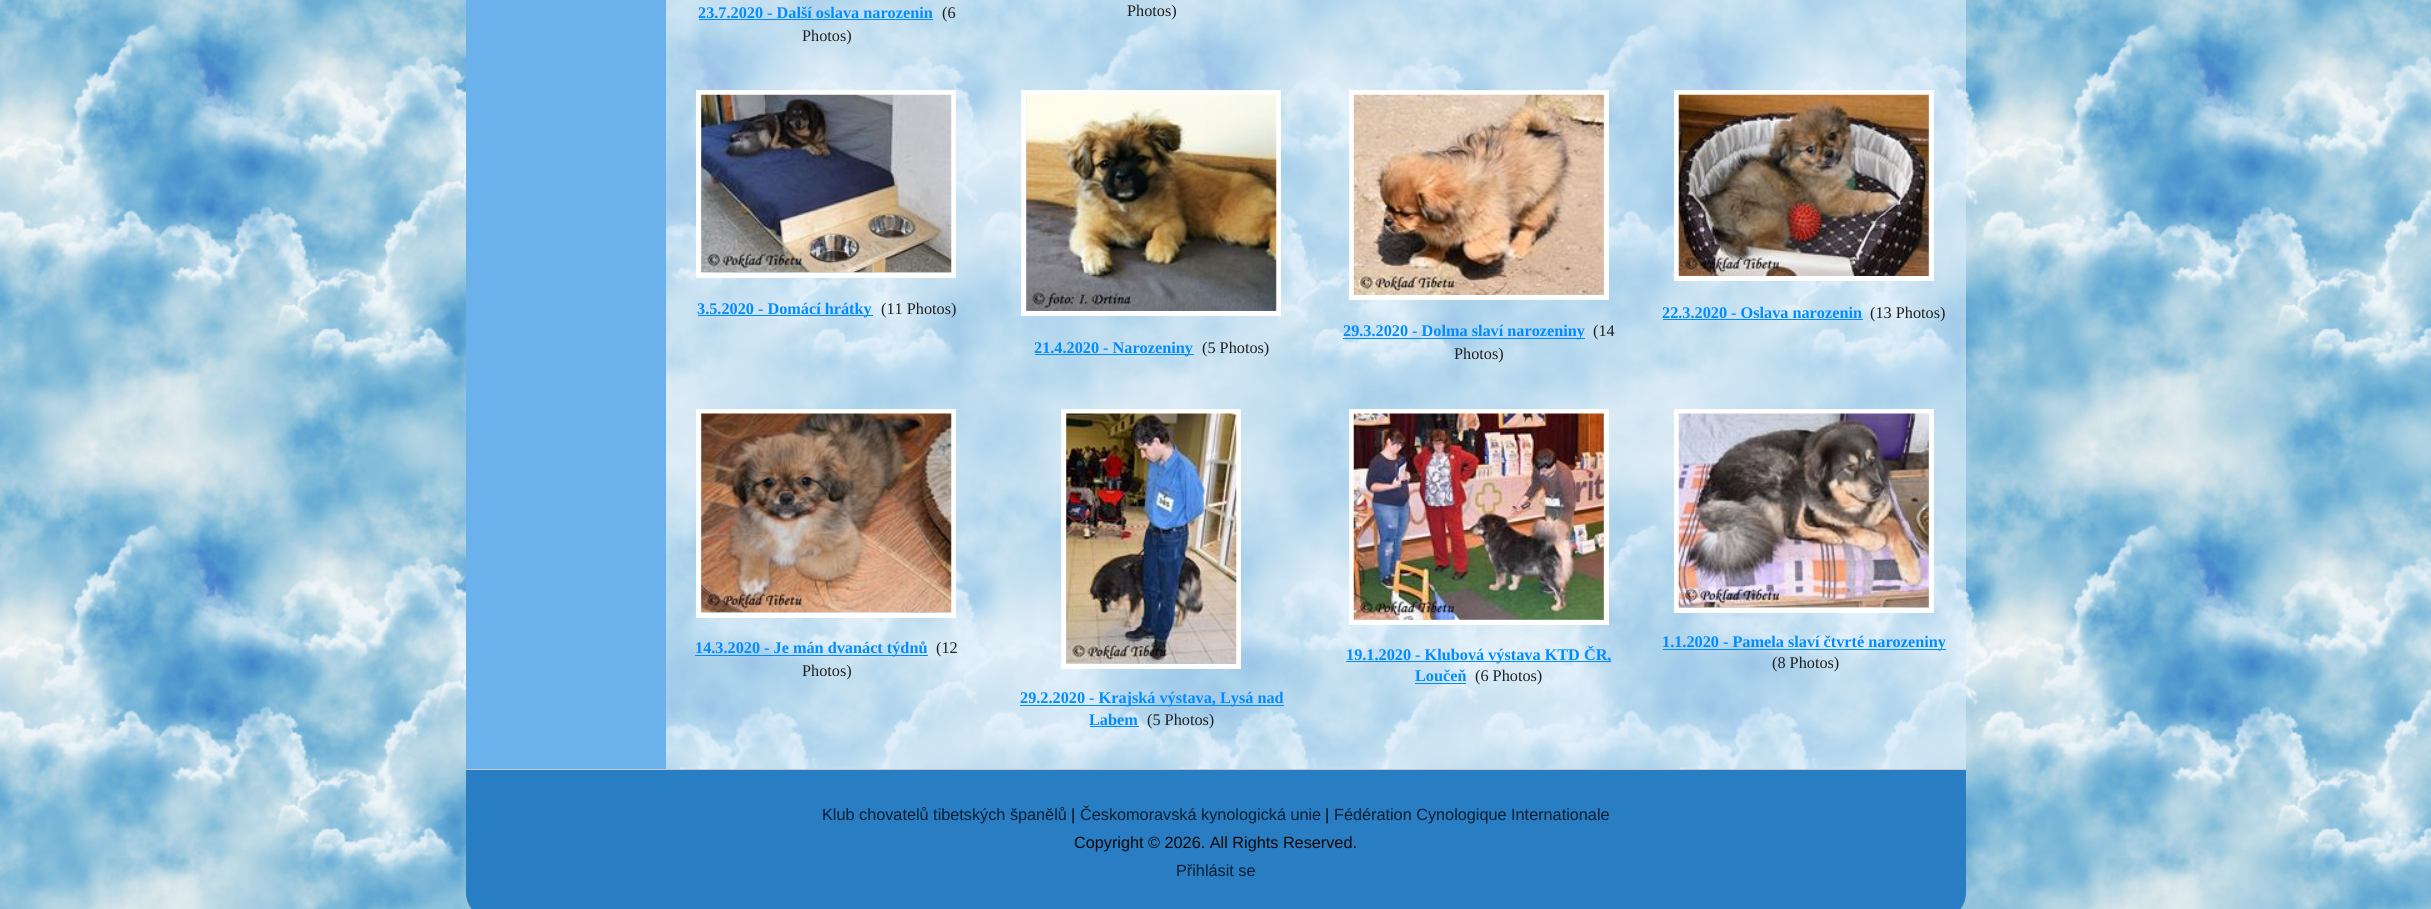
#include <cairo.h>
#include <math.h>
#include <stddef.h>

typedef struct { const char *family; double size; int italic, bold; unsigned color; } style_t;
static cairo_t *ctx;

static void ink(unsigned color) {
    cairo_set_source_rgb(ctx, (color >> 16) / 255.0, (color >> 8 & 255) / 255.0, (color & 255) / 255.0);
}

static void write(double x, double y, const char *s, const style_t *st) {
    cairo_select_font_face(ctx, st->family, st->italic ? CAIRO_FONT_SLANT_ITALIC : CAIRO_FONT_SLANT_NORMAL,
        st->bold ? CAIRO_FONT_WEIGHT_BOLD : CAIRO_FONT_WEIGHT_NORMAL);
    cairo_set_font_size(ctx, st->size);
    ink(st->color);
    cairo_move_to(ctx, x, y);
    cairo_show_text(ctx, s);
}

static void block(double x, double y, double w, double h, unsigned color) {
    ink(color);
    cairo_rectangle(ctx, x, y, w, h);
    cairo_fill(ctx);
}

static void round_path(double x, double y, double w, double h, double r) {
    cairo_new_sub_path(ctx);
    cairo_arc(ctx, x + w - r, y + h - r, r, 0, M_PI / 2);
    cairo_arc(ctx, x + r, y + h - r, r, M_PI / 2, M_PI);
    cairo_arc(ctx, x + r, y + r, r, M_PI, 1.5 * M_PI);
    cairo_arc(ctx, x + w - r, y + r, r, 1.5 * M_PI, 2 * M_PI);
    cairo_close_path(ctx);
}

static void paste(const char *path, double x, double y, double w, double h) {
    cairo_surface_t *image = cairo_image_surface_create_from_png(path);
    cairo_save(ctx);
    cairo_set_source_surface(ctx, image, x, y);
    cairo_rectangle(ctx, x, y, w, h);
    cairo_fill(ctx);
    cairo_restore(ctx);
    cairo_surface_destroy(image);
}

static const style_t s1 = {"Liberation Serif", 16.25, 0, 1, 0x028bff};
static const style_t s2 = {"Liberation Serif", 16.25, 0, 0, 0x1f1f1f};
static const style_t s3 = {"Liberation Sans", 16.25, 0, 0, 0x061e32};
static const style_t s4 = {"Liberation Sans", 16.25, 0, 0, 0x080808};

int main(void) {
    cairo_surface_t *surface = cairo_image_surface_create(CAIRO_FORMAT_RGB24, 2431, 909);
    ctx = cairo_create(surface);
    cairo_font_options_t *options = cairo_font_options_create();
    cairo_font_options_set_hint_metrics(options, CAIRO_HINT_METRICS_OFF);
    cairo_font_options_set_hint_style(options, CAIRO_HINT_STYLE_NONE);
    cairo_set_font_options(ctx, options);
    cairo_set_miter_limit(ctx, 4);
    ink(0xffffff);
    cairo_paint(ctx);
    paste("pic1.png", 0, 0, 2431, 909);
    cairo_set_source_rgba(ctx, 0.855, 0.925, 0.984, 0.6);
    round_path(466, -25, 1500, 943, 25);
    cairo_fill(ctx);
    block(466, 0, 200, 769, 0x6bb2ed);
    write(698, 18, "23.7.2020 - Další oslava narozenin", &s1);
    block(699, 19, 234, 1, 0x028bff);
    write(942, 18, "(6", &s2);
    write(802, 41, "Photos)", &s2);
    write(1127, 16, "Photos)", &s2);
    cairo_rectangle(ctx, 698.5, 92.5, 255, 183);
    ink(0xffffff);
    cairo_set_line_width(ctx, 5);
    cairo_stroke(ctx);
    paste("pic2.png", 701, 94, 251, 179);
    block(698, 315, 175, 1, 0x028bff);
    write(697, 314, "3.5.2020 - Domácí hrátky", &s1);
    write(881, 314, "(11 Photos)", &s2);
    cairo_rectangle(ctx, 1676.5, 92.5, 255, 186);
    ink(0xffffff);
    cairo_stroke(ctx);
    paste("pic3.png", 1678, 94, 251, 182);
    write(1662, 318, "22.3.2020 - Oslava narozenin", &s1);
    block(1663, 319, 200, 1, 0x028bff);
    write(1870, 318, "(13 Photos)", &s2);
    cairo_rectangle(ctx, 1023.5, 92.5, 255, 221);
    ink(0xffffff);
    cairo_stroke(ctx);
    paste("pic4.png", 1026, 94, 251, 217);
    block(1035, 354, 159, 1, 0x028bff);
    write(1034, 353, "21.4.2020 - Narozeniny", &s1);
    write(1202, 353, "(5 Photos)", &s2);
    cairo_rectangle(ctx, 1351.5, 92.5, 255, 205);
    ink(0xffffff);
    cairo_stroke(ctx);
    paste("pic5.png", 1353, 94, 251, 201);
    block(1343, 338, 242, 1, 0x028bff);
    write(1343, 336, "29.3.2020 - Dolma slaví narozeniny", &s1);
    write(1593, 336, "(14", &s2);
    write(1454, 359, "Photos)", &s2);
    cairo_rectangle(ctx, 698.5, 411.5, 255, 204);
    ink(0xffffff);
    cairo_stroke(ctx);
    paste("pic6.png", 701, 413, 251, 200);
    block(695, 655, 233, 1, 0x028bff);
    write(695, 653, "14.3.2020 - Je mán dvanáct týdnů", &s1);
    write(936, 653, "(12", &s2);
    write(802, 676, "Photos)", &s2);
    cairo_rectangle(ctx, 1351.5, 411.5, 255, 211);
    ink(0xffffff);
    cairo_stroke(ctx);
    paste("pic7.png", 1353, 413, 251, 207);
    block(1346, 661, 265, 1, 0x028bff);
    write(1346, 660, "19.1.2020 - Klubová výstava KTD ČR,", &s1);
    write(1415, 681, "Loučeň", &s1);
    block(1415, 683, 51, 1, 0x028bff);
    write(1475, 681, "(6 Photos)", &s2);
    cairo_rectangle(ctx, 1676.5, 411.5, 255, 199);
    ink(0xffffff);
    cairo_stroke(ctx);
    paste("pic8.png", 1678, 413, 251, 195);
    block(1663, 649, 283, 1, 0x028bff);
    write(1662, 647, "1.1.2020 - Pamela slaví čtvrté narozeniny", &s1);
    write(1772, 668, "(8 Photos)", &s2);
    cairo_rectangle(ctx, 1063.5, 411.5, 175, 255);
    ink(0xffffff);
    cairo_stroke(ctx);
    paste("pic9.png", 1066, 413, 171, 251);
    block(1020, 705, 264, 1, 0x028bff);
    write(1020, 703, "29.2.2020 - Krajská výstava, Lysá nad", &s1);
    write(1089, 725, "Labem", &s1);
    block(1090, 726, 49, 1, 0x028bff);
    write(1147, 725, "(5 Photos)", &s2);
    ink(0x297dc2);
    cairo_new_path(ctx);
    cairo_move_to(ctx, 466, 769);
    cairo_line_to(ctx, 1966, 769);
    cairo_line_to(ctx, 1966, 893);
    cairo_curve_to(ctx, 1966, 907, 1955, 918, 1941, 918);
    cairo_line_to(ctx, 491, 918);
    cairo_curve_to(ctx, 477, 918, 466, 907, 466, 893);
    cairo_close_path(ctx);
    cairo_fill(ctx);
    block(466, 769, 1500, 1, 0xc7c7c7);
    write(822, 820, "Klub chovatelů tibetských španělů", &s3);
    write(1071, 820, "|", &s4);
    write(1080, 820, "Českomoravská kynologická unie", &s3);
    write(1325, 820, "|", &s4);
    write(1334, 820, "Fédération Cynologique Internationale", &s3);
    write(1074, 848, "Copyright © 2026. All Rights Reserved.", &s4);
    write(1176, 876, "Přihlásit se", &s3);
    cairo_surface_write_to_png(surface, "screenshot.png");
    cairo_font_options_destroy(options);
    cairo_destroy(ctx);
    cairo_surface_destroy(surface);
    return 0;
}
